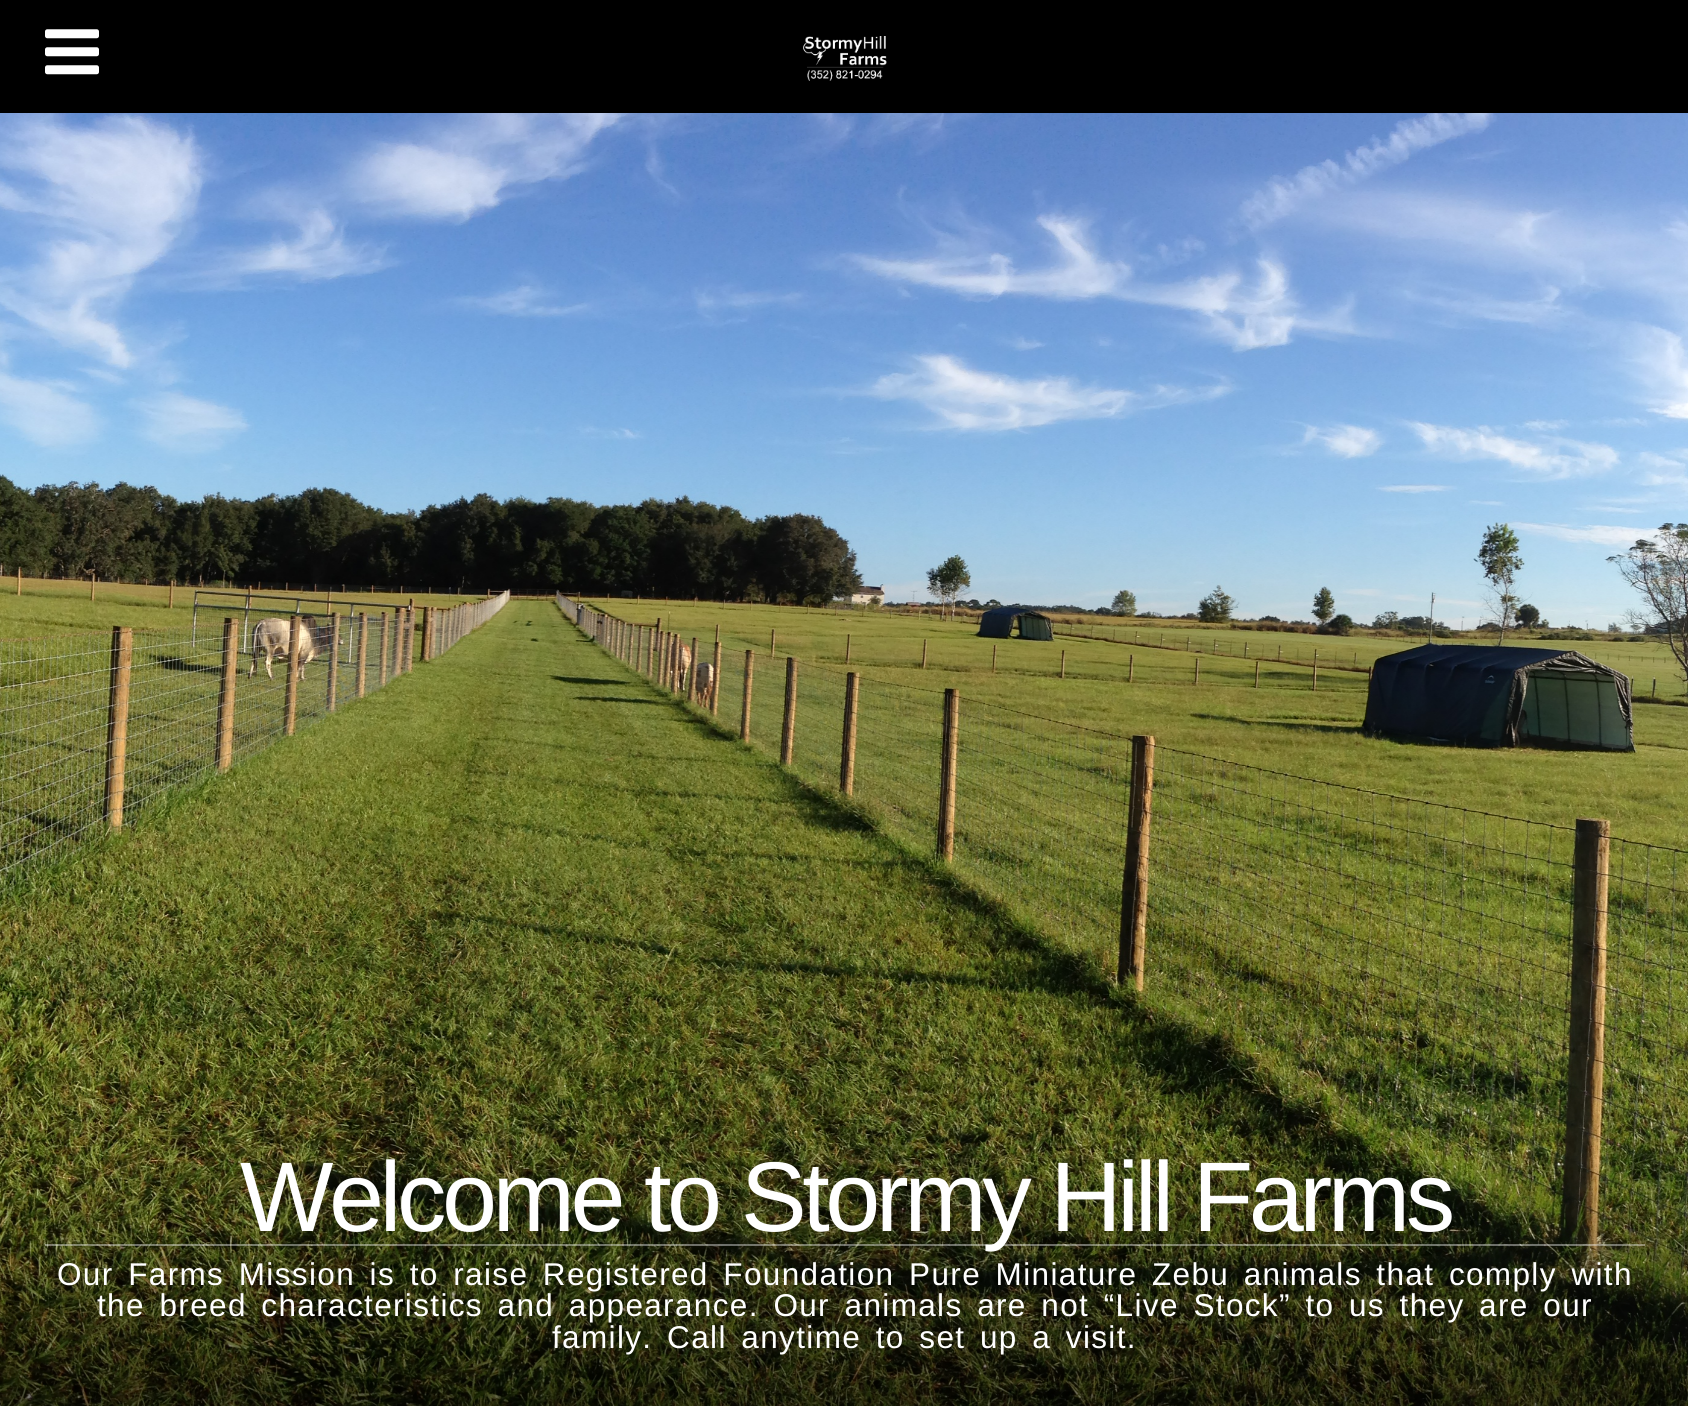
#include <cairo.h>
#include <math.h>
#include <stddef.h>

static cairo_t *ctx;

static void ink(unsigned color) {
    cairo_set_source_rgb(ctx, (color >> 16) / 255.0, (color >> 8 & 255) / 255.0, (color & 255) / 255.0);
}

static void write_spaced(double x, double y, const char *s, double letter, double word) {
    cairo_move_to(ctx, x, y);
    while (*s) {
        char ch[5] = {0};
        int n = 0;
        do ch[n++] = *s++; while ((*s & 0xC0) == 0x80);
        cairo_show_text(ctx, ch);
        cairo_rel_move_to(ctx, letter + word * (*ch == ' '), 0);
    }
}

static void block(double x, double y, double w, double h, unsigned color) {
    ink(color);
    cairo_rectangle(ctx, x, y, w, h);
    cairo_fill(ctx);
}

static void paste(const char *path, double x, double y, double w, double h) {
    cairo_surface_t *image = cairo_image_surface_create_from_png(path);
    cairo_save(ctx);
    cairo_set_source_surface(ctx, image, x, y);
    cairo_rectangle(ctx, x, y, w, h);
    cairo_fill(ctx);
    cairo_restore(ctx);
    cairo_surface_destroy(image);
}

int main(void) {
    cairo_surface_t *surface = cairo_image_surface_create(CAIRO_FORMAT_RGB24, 1688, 1406);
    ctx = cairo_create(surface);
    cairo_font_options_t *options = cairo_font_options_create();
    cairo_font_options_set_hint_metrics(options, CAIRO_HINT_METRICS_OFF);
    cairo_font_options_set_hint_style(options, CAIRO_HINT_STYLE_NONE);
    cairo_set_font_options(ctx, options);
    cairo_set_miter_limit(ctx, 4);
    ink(0xffffff);
    cairo_paint(ctx);
    block(0, 0, 1688, 113, 0x000000);
    paste("pic1.png", 45, 29, 54, 46);
    paste("pic2.png", 803, 36, 84, 45);
    paste("pic3.png", 0, 113, 1688, 1293);
    cairo_select_font_face(ctx, "Liberation Sans", CAIRO_FONT_SLANT_NORMAL, CAIRO_FONT_WEIGHT_NORMAL);
    cairo_set_font_size(ctx, 99);
    ink(0xffffff);
    write_spaced(240, 1231, "Welcome to Stormy Hill Farms", -4.5, 0);
    cairo_set_source_rgba(ctx, 1, 1, 1, 0.4);
    cairo_rectangle(ctx, 45, 1244, 1600, 2);
    cairo_fill(ctx);
    cairo_set_font_size(ctx, 31.5);
    ink(0xffffff);
    write_spaced(57, 1285, "Our Farms Mission is to raise Registered Foundation Pure Miniature Zebu animals that comply with", 1.35, 4.5);
    write_spaced(97, 1316, "the breed characteristics and appearance. Our animals are not “Live Stock” to us they are our", 1.35, 4.5);
    write_spaced(552, 1348, "family. Call anytime to set up a visit.", 1.35, 4.5);
    cairo_surface_write_to_png(surface, "screenshot.png");
    cairo_font_options_destroy(options);
    cairo_destroy(ctx);
    cairo_surface_destroy(surface);
    return 0;
}
